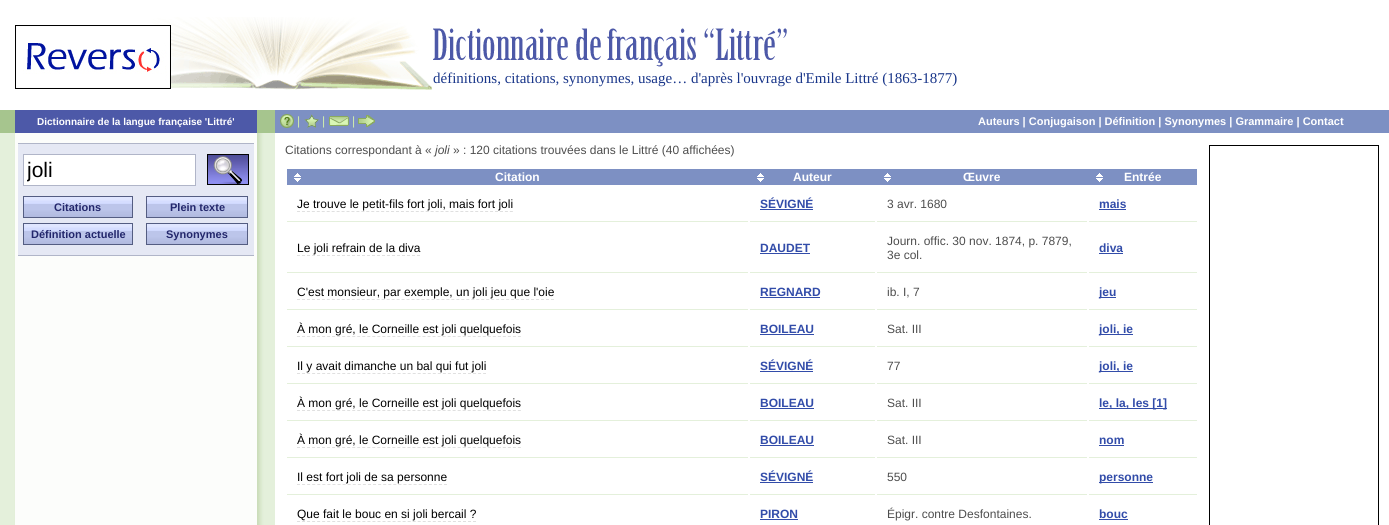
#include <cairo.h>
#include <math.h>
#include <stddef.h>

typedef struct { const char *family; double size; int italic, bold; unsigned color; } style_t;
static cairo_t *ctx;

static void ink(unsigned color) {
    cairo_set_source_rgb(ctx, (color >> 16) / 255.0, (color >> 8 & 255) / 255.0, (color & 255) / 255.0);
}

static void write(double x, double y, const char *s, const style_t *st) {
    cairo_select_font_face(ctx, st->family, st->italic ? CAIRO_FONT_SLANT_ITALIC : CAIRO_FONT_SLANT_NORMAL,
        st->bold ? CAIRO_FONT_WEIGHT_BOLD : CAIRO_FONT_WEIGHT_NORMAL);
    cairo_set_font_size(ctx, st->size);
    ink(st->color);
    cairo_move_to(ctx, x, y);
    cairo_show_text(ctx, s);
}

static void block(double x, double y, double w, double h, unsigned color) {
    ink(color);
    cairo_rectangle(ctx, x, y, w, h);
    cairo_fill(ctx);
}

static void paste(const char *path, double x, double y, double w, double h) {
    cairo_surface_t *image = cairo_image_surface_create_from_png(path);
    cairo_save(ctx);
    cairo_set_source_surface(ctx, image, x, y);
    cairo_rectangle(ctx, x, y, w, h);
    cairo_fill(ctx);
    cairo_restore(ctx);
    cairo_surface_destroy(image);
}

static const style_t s1 = {"Liberation Serif", 15, 0, 0, 0x183589};
static const style_t s2 = {"Liberation Sans", 10, 0, 1, 0xffffff};
static const style_t s3 = {"Liberation Sans", 12, 0, 0, 0xd2efad};
static const style_t s4 = {"Liberation Sans", 11, 0, 1, 0xffffff};
static const style_t s5 = {"Liberation Sans", 21, 0, 0, 0x000000};
static const style_t s6 = {"Liberation Sans", 11, 0, 1, 0x23276c};
static const style_t s7 = {"Liberation Sans", 12, 0, 0, 0x4d4d4d};
static const style_t s8 = {"Liberation Sans", 12, 1, 0, 0x4d4d4d};
static const style_t s9 = {"Liberation Sans", 12, 0, 1, 0xffffff};
static const style_t s10 = {"Liberation Sans", 12, 0, 0, 0x000000};
static const style_t s11 = {"Liberation Sans", 12, 0, 1, 0x324ca9};

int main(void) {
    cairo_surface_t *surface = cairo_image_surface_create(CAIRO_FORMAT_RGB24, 1389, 525);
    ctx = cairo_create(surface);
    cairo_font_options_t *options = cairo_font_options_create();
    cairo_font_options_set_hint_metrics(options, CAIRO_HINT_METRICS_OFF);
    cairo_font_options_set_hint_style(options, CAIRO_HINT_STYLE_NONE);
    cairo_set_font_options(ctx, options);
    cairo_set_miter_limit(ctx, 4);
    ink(0xffffff);
    cairo_paint(ctx);
    paste("pic1.png", 117, 17, 315, 73);
    paste("pic2.png", 15, 25, 156, 64);
    paste("pic3.png", 433, 28, 354, 39);
    write(433, 83, "définitions, citations, synonymes, usage… d'après l'ouvrage d'Emile Littré (1863-1877)", &s1);
    block(0, 110, 275, 23, 0xa6c58e);
    block(15, 110, 242, 23, 0x4d59a8);
    write(37, 125, "Dictionnaire de la langue française 'Littré'", &s2);
    block(275, 110, 1114, 23, 0x7d90c3);
    paste("pic4.png", 280, 114, 14, 14);
    write(297, 125, "|", &s3);
    paste("pic5.png", 304, 114, 15, 14);
    write(322, 125, "|", &s3);
    paste("pic6.png", 329, 116, 20, 10);
    write(352, 125, "|", &s3);
    paste("pic7.png", 358, 115, 17, 12);
    write(978, 125, "Auteurs | Conjugaison | Définition | Synonymes | Grammaire | Contact", &s4);
    paste("pic8.png", 0, 133, 275, 392);
    block(18, 144, 236, 111, 0xe5e8f4);
    block(18, 143, 236, 1, 0xb0b5c8);
    block(18, 255, 236, 1, 0xb0b5c8);
    ink(0xffffff);
    cairo_rectangle(ctx, 23.5, 154.5, 172, 31);
    cairo_fill_preserve(ctx);
    ink(0xb0b5c8);
    cairo_set_line_width(ctx, 1);
    cairo_stroke(ctx);
    cairo_save(ctx);
    cairo_rectangle(ctx, 27, 158, 165, 24);
    cairo_clip(ctx);
    write(27, 177, "joli", &s5);
    cairo_restore(ctx);
    paste("pic9.png", 207, 154, 42, 31);
    paste("pic10.png", 24, 197, 108, 20);
    cairo_rectangle(ctx, 23.5, 196.5, 109, 21);
    ink(0x545d82);
    cairo_stroke(ctx);
    write(54, 211, "Citations", &s6);
    paste("pic11.png", 147, 197, 100, 20);
    cairo_rectangle(ctx, 146.5, 196.5, 101, 21);
    ink(0x545d82);
    cairo_stroke(ctx);
    write(170, 211, "Plein texte", &s6);
    paste("pic10.png", 24, 224, 108, 20);
    cairo_rectangle(ctx, 23.5, 223.5, 109, 21);
    ink(0x545d82);
    cairo_stroke(ctx);
    write(31, 238, "Définition actuelle", &s6);
    paste("pic11.png", 147, 224, 100, 20);
    cairo_rectangle(ctx, 146.5, 223.5, 101, 21);
    ink(0x545d82);
    cairo_stroke(ctx);
    write(166, 238, "Synonymes", &s6);
    write(285, 154, "Citations correspondant à «", &s7);
    write(435, 154, "joli", &s8);
    write(453, 154, "» : 120 citations trouvées dans le Littré (40 affichées)", &s7);
    block(287, 169, 910, 16, 0x7d90c3);
    paste("pic12.png", 294, 173, 7, 9);
    write(495, 181, "Citation", &s9);
    paste("pic12.png", 757, 173, 7, 9);
    write(793, 181, "Auteur", &s9);
    paste("pic12.png", 884, 173, 7, 9);
    write(963, 181, "Œuvre", &s9);
    paste("pic12.png", 1096, 173, 7, 9);
    write(1124, 181, "Entrée", &s9);
    block(287, 221, 461, 1, 0xe4f0db);
    write(297, 208, "Je trouve le petit-fils fort joli, mais fort joli", &s10);
    cairo_new_path(ctx);
    cairo_move_to(ctx, 297, 211.5);
    cairo_line_to(ctx, 513, 211.5);
    ink(0xe0e0e0);
    cairo_set_dash(ctx, (double[]){3, 1.95}, 2, 0);
    cairo_stroke(ctx);
    block(750, 221, 125, 1, 0xe4f0db);
    write(760, 208, "SÉVIGNÉ", &s11);
    block(760, 209, 53, 1, 0x324ca9);
    block(877, 221, 210, 1, 0xe4f0db);
    write(887, 208, "3 avr. 1680", &s7);
    block(1089, 221, 108, 1, 0xe4f0db);
    write(1099, 208, "mais", &s11);
    block(1099, 209, 27, 1, 0x324ca9);
    block(287, 272, 461, 1, 0xe4f0db);
    write(297, 252, "Le joli refrain de la diva", &s10);
    cairo_new_path(ctx);
    cairo_move_to(ctx, 297, 255.5);
    cairo_line_to(ctx, 420, 255.5);
    ink(0xe0e0e0);
    cairo_set_dash(ctx, (double[]){3, 2}, 2, 0);
    cairo_stroke(ctx);
    block(750, 272, 125, 1, 0xe4f0db);
    write(760, 252, "DAUDET", &s11);
    block(760, 253, 50, 1, 0x324ca9);
    block(877, 272, 210, 1, 0xe4f0db);
    write(887, 245, "Journ. offic. 30 nov. 1874, p. 7879,", &s7);
    write(887, 259, "3e col.", &s7);
    block(1089, 272, 108, 1, 0xe4f0db);
    write(1099, 252, "diva", &s11);
    block(1099, 253, 24, 1, 0x324ca9);
    block(287, 309, 461, 1, 0xe4f0db);
    write(297, 296, "C'est monsieur, par exemple, un joli jeu que l'oie", &s10);
    cairo_new_path(ctx);
    cairo_move_to(ctx, 297, 299.5);
    cairo_line_to(ctx, 554, 299.5);
    ink(0xe0e0e0);
    cairo_set_dash(ctx, (double[]){3, 1.98}, 2, 0);
    cairo_stroke(ctx);
    block(750, 309, 125, 1, 0xe4f0db);
    write(760, 296, "REGNARD", &s11);
    block(760, 297, 60, 1, 0x324ca9);
    block(877, 309, 210, 1, 0xe4f0db);
    write(887, 296, "ib. I, 7", &s7);
    block(1089, 309, 108, 1, 0xe4f0db);
    block(1099, 297, 17, 1, 0x324ca9);
    write(1099, 296, "jeu", &s11);
    block(287, 346, 461, 1, 0xe4f0db);
    write(297, 333, "À mon gré, le Corneille est joli quelquefois", &s10);
    cairo_new_path(ctx);
    cairo_move_to(ctx, 297, 336.5);
    cairo_line_to(ctx, 521, 336.5);
    ink(0xe0e0e0);
    cairo_set_dash(ctx, (double[]){3, 2.02}, 2, 0);
    cairo_stroke(ctx);
    block(750, 346, 125, 1, 0xe4f0db);
    write(760, 333, "BOILEAU", &s11);
    block(760, 334, 54, 1, 0x324ca9);
    block(877, 346, 210, 1, 0xe4f0db);
    write(887, 333, "Sat. III", &s7);
    block(1089, 346, 108, 1, 0xe4f0db);
    block(1099, 334, 34, 1, 0x324ca9);
    write(1099, 333, "joli, ie", &s11);
    block(287, 383, 461, 1, 0xe4f0db);
    write(297, 370, "Il y avait dimanche un bal qui fut joli", &s10);
    cairo_new_path(ctx);
    cairo_move_to(ctx, 297, 373.5);
    cairo_line_to(ctx, 486, 373.5);
    ink(0xe0e0e0);
    cairo_set_dash(ctx, (double[]){3, 2.03}, 2, 0);
    cairo_stroke(ctx);
    block(750, 383, 125, 1, 0xe4f0db);
    write(760, 370, "SÉVIGNÉ", &s11);
    block(760, 371, 53, 1, 0x324ca9);
    block(877, 383, 210, 1, 0xe4f0db);
    write(887, 370, "77", &s7);
    block(1089, 383, 108, 1, 0xe4f0db);
    block(1099, 371, 34, 1, 0x324ca9);
    write(1099, 370, "joli, ie", &s11);
    block(287, 420, 461, 1, 0xe4f0db);
    write(297, 407, "À mon gré, le Corneille est joli quelquefois", &s10);
    cairo_new_path(ctx);
    cairo_move_to(ctx, 297, 410.5);
    cairo_line_to(ctx, 521, 410.5);
    ink(0xe0e0e0);
    cairo_set_dash(ctx, (double[]){3, 2.02}, 2, 0);
    cairo_stroke(ctx);
    block(750, 420, 125, 1, 0xe4f0db);
    write(760, 407, "BOILEAU", &s11);
    block(760, 408, 54, 1, 0x324ca9);
    block(877, 420, 210, 1, 0xe4f0db);
    write(887, 407, "Sat. III", &s7);
    block(1089, 420, 108, 1, 0xe4f0db);
    block(1099, 408, 68, 1, 0x324ca9);
    write(1099, 407, "le, la, les [1]", &s11);
    block(287, 457, 461, 1, 0xe4f0db);
    write(297, 444, "À mon gré, le Corneille est joli quelquefois", &s10);
    cairo_new_path(ctx);
    cairo_move_to(ctx, 297, 447.5);
    cairo_line_to(ctx, 521, 447.5);
    ink(0xe0e0e0);
    cairo_stroke(ctx);
    block(750, 457, 125, 1, 0xe4f0db);
    write(760, 444, "BOILEAU", &s11);
    block(760, 445, 54, 1, 0x324ca9);
    block(877, 457, 210, 1, 0xe4f0db);
    write(887, 444, "Sat. III", &s7);
    block(1089, 457, 108, 1, 0xe4f0db);
    write(1099, 444, "nom", &s11);
    block(1099, 445, 25, 1, 0x324ca9);
    block(287, 494, 461, 1, 0xe4f0db);
    write(297, 481, "Il est fort joli de sa personne", &s10);
    cairo_new_path(ctx);
    cairo_move_to(ctx, 297, 484.5);
    cairo_line_to(ctx, 447, 484.5);
    ink(0xe0e0e0);
    cairo_set_dash(ctx, (double[]){3, 2.07}, 2, 0);
    cairo_stroke(ctx);
    block(750, 494, 125, 1, 0xe4f0db);
    write(760, 481, "SÉVIGNÉ", &s11);
    block(760, 482, 53, 1, 0x324ca9);
    block(877, 494, 210, 1, 0xe4f0db);
    write(887, 481, "550", &s7);
    block(1089, 494, 108, 1, 0xe4f0db);
    block(1099, 482, 54, 1, 0x324ca9);
    write(1099, 481, "personne", &s11);
    write(297, 518, "Que fait le bouc en si joli bercail ?", &s10);
    cairo_new_path(ctx);
    cairo_move_to(ctx, 297, 521.5);
    cairo_line_to(ctx, 476, 521.5);
    ink(0xe0e0e0);
    cairo_set_dash(ctx, (double[]){3, 2.03}, 2, 0);
    cairo_stroke(ctx);
    write(760, 518, "PIRON", &s11);
    block(760, 519, 38, 1, 0x324ca9);
    write(887, 518, "Épigr. contre Desfontaines.", &s7);
    write(1099, 518, "bouc", &s11);
    block(1099, 519, 29, 1, 0x324ca9);
    cairo_rectangle(ctx, 1209.5, 145.5, 169, 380);
    ink(0x000000);
    cairo_set_dash(ctx, NULL, 0, 0);
    cairo_stroke(ctx);
    cairo_surface_write_to_png(surface, "screenshot.png");
    cairo_font_options_destroy(options);
    cairo_destroy(ctx);
    cairo_surface_destroy(surface);
    return 0;
}
